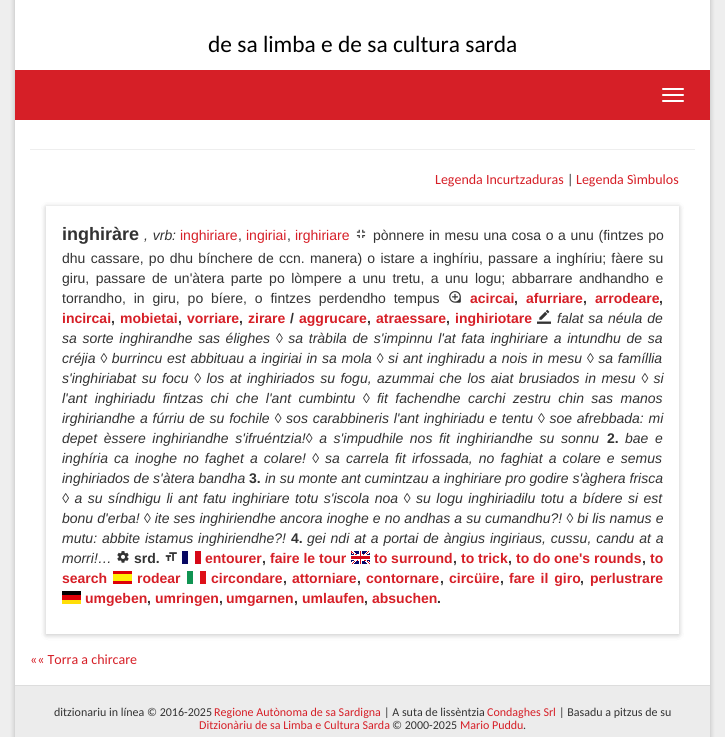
#include <cairo.h>
#include <math.h>
#include <stddef.h>

typedef struct { const char *family; double size; int italic, bold; unsigned color; } style_t;
static cairo_t *ctx;

static void ink(unsigned color) {
    cairo_set_source_rgb(ctx, (color >> 16) / 255.0, (color >> 8 & 255) / 255.0, (color & 255) / 255.0);
}

static void write(double x, double y, const char *s, const style_t *st) {
    cairo_select_font_face(ctx, st->family, st->italic ? CAIRO_FONT_SLANT_ITALIC : CAIRO_FONT_SLANT_NORMAL,
        st->bold ? CAIRO_FONT_WEIGHT_BOLD : CAIRO_FONT_WEIGHT_NORMAL);
    cairo_set_font_size(ctx, st->size);
    ink(st->color);
    cairo_move_to(ctx, x, y);
    cairo_show_text(ctx, s);
}

static void write_spaced(double x, double y, const char *s, double letter, double word) {
    cairo_move_to(ctx, x, y);
    while (*s) {
        char ch[5] = {0};
        int n = 0;
        do ch[n++] = *s++; while ((*s & 0xC0) == 0x80);
        cairo_show_text(ctx, ch);
        cairo_rel_move_to(ctx, letter + word * (*ch == ' '), 0);
    }
}

static void block(double x, double y, double w, double h, unsigned color) {
    ink(color);
    cairo_rectangle(ctx, x, y, w, h);
    cairo_fill(ctx);
}

static void round_path(double x, double y, double w, double h, double r) {
    cairo_new_sub_path(ctx);
    cairo_arc(ctx, x + w - r, y + h - r, r, 0, M_PI / 2);
    cairo_arc(ctx, x + r, y + h - r, r, M_PI / 2, M_PI);
    cairo_arc(ctx, x + r, y + r, r, M_PI, 1.5 * M_PI);
    cairo_arc(ctx, x + w - r, y + r, r, 1.5 * M_PI, 2 * M_PI);
    cairo_close_path(ctx);
}

static void blur_box(double x, double y, double w, double h, double r, double blur, double alpha) {
    cairo_push_group_with_content(ctx, CAIRO_CONTENT_ALPHA);
    cairo_set_operator(ctx, CAIRO_OPERATOR_SOURCE);
    for (int i = 15; i >= -15 && fmin(w, h) + blur * i / 3 > 0; i -= 2) {
        double e = blur * i / 6;
        cairo_set_source_rgba(ctx, 0, 0, 0, alpha * erfc((i - 1) / 8.5) / 2);
        round_path(x - e, y - e, w + 2 * e, h + 2 * e, fmax(0, fmin(r + e + blur * .6, fmin(w, h) / 2 + e)));
        cairo_fill(ctx);
    }
    cairo_pattern_t *soft = cairo_pop_group(ctx);
    cairo_mask(ctx, soft);
    cairo_pattern_destroy(soft);
}

static void paste(const char *path, double x, double y, double w, double h) {
    cairo_surface_t *image = cairo_image_surface_create_from_png(path);
    cairo_save(ctx);
    cairo_set_source_surface(ctx, image, x, y);
    cairo_rectangle(ctx, x, y, w, h);
    cairo_fill(ctx);
    cairo_restore(ctx);
    cairo_surface_destroy(image);
}

static const style_t s1 = {"Carlito", 23.4, 0, 0, 0x000000};
static const style_t s2 = {"Carlito", 14, 0, 0, 0xd61f27};
static const style_t s3 = {"Carlito", 14, 0, 0, 0x333333};
static const style_t s4 = {"Liberation Sans", 18, 0, 1, 0x333333};
static const style_t s5 = {"Liberation Sans", 14, 1, 0, 0x333333};
static const style_t s6 = {"Liberation Sans", 14, 0, 0, 0xd61f27};
static const style_t s7 = {"Liberation Sans", 14, 0, 0, 0x333333};
static const style_t s8 = {"Liberation Sans", 14, 0, 1, 0xd61f27};
static const style_t s9 = {"Liberation Sans", 14, 0, 1, 0x333333};
static const style_t s10 = {"Carlito", 12, 0, 0, 0x333333};
static const style_t s11 = {"Carlito", 12, 0, 0, 0xd61f27};

int main(void) {
    cairo_surface_t *surface = cairo_image_surface_create(CAIRO_FORMAT_RGB24, 725, 737);
    ctx = cairo_create(surface);
    cairo_font_options_t *options = cairo_font_options_create();
    cairo_font_options_set_hint_metrics(options, CAIRO_HINT_METRICS_OFF);
    cairo_font_options_set_hint_style(options, CAIRO_HINT_STYLE_NONE);
    cairo_set_font_options(ctx, options);
    cairo_set_miter_limit(ctx, 4);
    ink(0xeeeeee);
    cairo_paint(ctx);
    ink(0x000000);
    blur_box(15, -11, 695, 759, 2, 3, 0.12);
    blur_box(15, -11, 695, 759, 2, 3, 0.12);
    block(15, 0, 695, 685, 0xffffff);
    block(30, 149, 665, 1, 0xeeeeee);
    write(208, 52, "de sa limba e de sa cultura sarda", &s1);
    block(15, 70, 695, 50, 0xd61f27);
    ink(0xffffff);
    round_path(662, 88, 22, 2, 1);
    cairo_fill(ctx);
    round_path(662, 94, 22, 2, 1);
    cairo_fill(ctx);
    round_path(662, 100, 22, 2, 1);
    cairo_fill(ctx);
    write(435, 184, "Legenda Incurtzaduras", &s2);
    write(567, 184, "|", &s3);
    write(576, 184, "Legenda Sìmbulos", &s2);
    cairo_save(ctx);
    cairo_set_fill_rule(ctx, CAIRO_FILL_RULE_EVEN_ODD);
    cairo_new_path(ctx);
    cairo_move_to(ctx, 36, 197);
    cairo_line_to(ctx, 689, 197);
    cairo_line_to(ctx, 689, 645);
    cairo_line_to(ctx, 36, 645);
    cairo_close_path(ctx);
    cairo_move_to(ctx, 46, 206);
    cairo_line_to(ctx, 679, 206);
    cairo_line_to(ctx, 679, 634);
    cairo_line_to(ctx, 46, 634);
    cairo_close_path(ctx);
    cairo_clip(ctx);
    ink(0x000000);
    blur_box(46, 207, 633, 428, 0, 3, 0.12);
    blur_box(46, 207, 633, 428, 0, 3, 0.12);
    cairo_restore(ctx);
    write(62, 240, "inghiràre", &s4);
    cairo_select_font_face(ctx, "Liberation Sans", CAIRO_FONT_SLANT_ITALIC, CAIRO_FONT_WEIGHT_NORMAL);
    cairo_set_font_size(ctx, 14);
    write_spaced(144, 240, ", vrb", 0, 1);
    write(172, 240, ":", &s5);
    write(180, 240, "inghiriare", &s6);
    write(238, 240, ",", &s7);
    write(246, 240, "ingiriai", &s6);
    write(287, 240, ",", &s7);
    write(295, 240, "irghiriare", &s6);
    paste("pic1.png", 356, 229, 10, 9);
    ink(0x333333);
    write_spaced(373, 240, "pònnere in mesu una cosa o a unu (fintzes po", 0, 0.75);
    write_spaced(62, 263, "dhu cassare, po dhu bínchere de ccn. manera) o istare a inghíriu, passare a inghíriu; fàere su", 0, 1.4);
    write_spaced(62, 283, "giru, passare de un'àtera parte po lòmpere a unu tretu, a unu logu; abbarrare andhandho e", 0, 2.6);
    write_spaced(62, 303, "torrandho, in giru, po bíere, o fintzes perdendho tempus", 0, 4);
    paste("pic2.png", 449, 291, 12, 12);
    write(470, 303, "acircai", &s8);
    write(514, 303, ",", &s9);
    write(526, 303, "afurriare", &s8);
    write(583, 303, ",", &s9);
    write(595, 303, "arrodeare", &s8);
    write(659, 303, ",", &s9);
    write(62, 323, "incircai", &s8);
    write(111, 323, ",", &s9);
    write(120, 323, "mobietai", &s8);
    write(178, 323, ",", &s9);
    write(187, 323, "vorriare", &s8);
    write(239, 323, ",", &s9);
    write(248, 323, "zirare", &s8);
    write(290, 323, "/", &s9);
    write(299, 323, "aggrucare", &s8);
    write(367, 323, ",", &s9);
    write(376, 323, "atraessare", &s8);
    write(446, 323, ",", &s9);
    write(455, 323, "inghiriotare", &s8);
    paste("pic3.png", 537, 309, 14, 15);
    cairo_select_font_face(ctx, "Liberation Sans", CAIRO_FONT_SLANT_ITALIC, CAIRO_FONT_WEIGHT_NORMAL);
    ink(0x333333);
    write_spaced(557, 323, "falat sa néula de", 0, 1);
    write_spaced(62, 343, "sa sorte inghirandhe sas élighes ◊ sa tràbila de s'impinnu l'at fata inghiriare a intundhu de sa", 0, 1.8);
    write_spaced(62, 363, "créjia ◊ burrincu est abbituau a ingiriai in sa mola ◊ si ant inghiradu a nois in mesu ◊ sa famíllia", 0, 0.8);
    write_spaced(62, 383, "s'inghiriabat su focu ◊ los at inghiriados su fogu, azummai che los aiat brusiados in mesu ◊ si", 0, 1.6);
    write_spaced(62, 403, "l'ant inghiriadu fintzas chi che l'ant cumbintu ◊ fit fachendhe carchi zestru chin sas manos", 0, 3.5);
    write_spaced(62, 423, "irghiriandhe a fúrriu de su fochile ◊ sos carabbineris l'ant inghiriadu e tentu ◊ soe afrebbada: mi", 0, 0.9);
    write_spaced(62, 443, "depet èssere inghiriandhe s'ifruéntzia!◊ a s'impudhile nos fit inghiriandhe su sonnu", 0, 2.75);
    write(607, 443, "2.", &s9);
    cairo_select_font_face(ctx, "Liberation Sans", CAIRO_FONT_SLANT_ITALIC, CAIRO_FONT_WEIGHT_NORMAL);
    write_spaced(625, 443, "bae e", 0, 2.75);
    write_spaced(62, 463, "inghíria ca inoghe no faghet a colare! ◊ sa carrela fit irfossada, no faghiat a colare e semus", 0, 2.25);
    write(62, 483, "inghiriados de s'àtera bandha", &s5);
    write(249, 483, "3.", &s9);
    write(265, 483, "in su monte ant cumintzau a inghiriare pro godire s'àghera frisca", &s5);
    write_spaced(62, 503, "◊ a su síndhigu li ant fatu inghiriare totu s'iscola noa ◊ su logu inghiriadilu totu a bídere si est", 0, 1.6);
    write_spaced(62, 523, "bonu d'erba! ◊ ite ses inghiriendhe ancora inoghe e no andhas a su cumandhu?! ◊ bi lis namus e", 0, 0.2);
    write_spaced(62, 543, "mutu: abbite istamus inghiriendhe?!", 0, 1);
    write(291, 543, "4.", &s9);
    cairo_select_font_face(ctx, "Liberation Sans", CAIRO_FONT_SLANT_ITALIC, CAIRO_FONT_WEIGHT_NORMAL);
    write_spaced(307, 543, "gei ndi at a portai de àngius ingiriaus, cussu, candu at a", 0, 1);
    write(62, 563, "morri!…", &s5);
    paste("pic4.png", 117, 551, 12, 12);
    write(134, 563, "srd.", &s9);
    paste("pic5.png", 165, 552, 12, 9);
    paste("pic6.png", 182, 551, 19, 13);
    write(205, 563, "entourer", &s8);
    write(262, 563, ",", &s9);
    write(270, 563, "faire le tour", &s8);
    paste("pic7.png", 351, 551, 19, 13);
    write(374, 563, "to surround", &s8);
    write(453, 563, ",", &s9);
    write(461, 563, "to trick", &s8);
    write(508, 563, ",", &s9);
    write(516, 563, "to do one's rounds", &s8);
    write(642, 563, ",", &s9);
    write(650, 563, "to", &s8);
    write(62, 583, "search", &s8);
    paste("pic8.png", 113, 571, 19, 13);
    write(137, 583, "rodear", &s8);
    paste("pic9.png", 187, 571, 19, 13);
    write(211, 583, "circondare", &s8);
    write(283, 583, ",", &s9);
    write(292, 583, "attorniare", &s8);
    write(357, 583, ",", &s9);
    write(366, 583, "contornare", &s8);
    write(440, 583, ",", &s9);
    write(449, 583, "circüire", &s8);
    write(500, 583, ",", &s9);
    ink(0xd61f27);
    write_spaced(509, 583, "fare il giro", 0, 2);
    write(580, 583, ",", &s9);
    write(590, 583, "perlustrare", &s8);
    paste("pic10.png", 62, 591, 19, 13);
    write(85, 603, "umgeben", &s8);
    write(147, 603, ",", &s9);
    write(155, 603, "umringen", &s8);
    write(219, 603, ",", &s9);
    write(226, 603, "umgarnen", &s8);
    write(294, 603, ",", &s9);
    write(302, 603, "umlaufen", &s8);
    write(364, 603, ",", &s9);
    write(372, 603, "absuchen", &s8);
    write(437, 603, ".", &s9);
    write(30, 664, "«« Torra a chircare", &s2);
    block(15, 686, 695, 51, 0xececec);
    block(15, 685, 695, 1, 0xdddddd);
    write(54, 716, "ditzionariu in línea © 2016-2025", &s10);
    write(214, 716, "Regione Autònoma de sa Sardigna", &s11);
    write(384, 716, "| A suta de lissèntzia", &s10);
    write(487, 716, "Condaghes Srl", &s11);
    write(559, 716, "| Basadu a pitzus de su", &s10);
    write(199, 729, "Ditzionàriu de sa Limba e Cultura Sarda", &s11);
    write(392, 729, "© 2000-2025", &s10);
    write(460, 729, "Mario Puddu", &s11);
    write(523, 729, ".", &s10);
    cairo_surface_write_to_png(surface, "screenshot.png");
    cairo_font_options_destroy(options);
    cairo_destroy(ctx);
    cairo_surface_destroy(surface);
    return 0;
}
